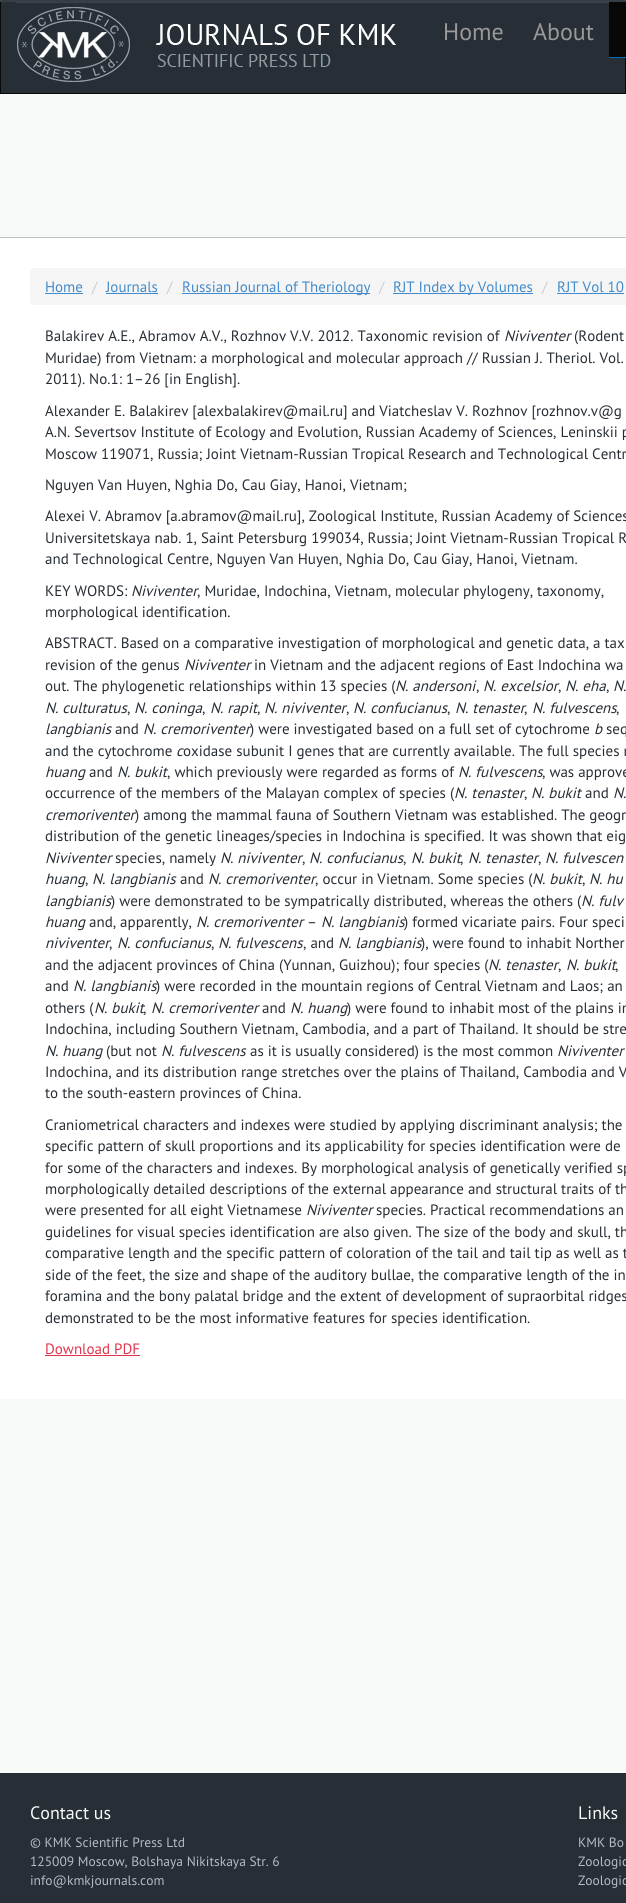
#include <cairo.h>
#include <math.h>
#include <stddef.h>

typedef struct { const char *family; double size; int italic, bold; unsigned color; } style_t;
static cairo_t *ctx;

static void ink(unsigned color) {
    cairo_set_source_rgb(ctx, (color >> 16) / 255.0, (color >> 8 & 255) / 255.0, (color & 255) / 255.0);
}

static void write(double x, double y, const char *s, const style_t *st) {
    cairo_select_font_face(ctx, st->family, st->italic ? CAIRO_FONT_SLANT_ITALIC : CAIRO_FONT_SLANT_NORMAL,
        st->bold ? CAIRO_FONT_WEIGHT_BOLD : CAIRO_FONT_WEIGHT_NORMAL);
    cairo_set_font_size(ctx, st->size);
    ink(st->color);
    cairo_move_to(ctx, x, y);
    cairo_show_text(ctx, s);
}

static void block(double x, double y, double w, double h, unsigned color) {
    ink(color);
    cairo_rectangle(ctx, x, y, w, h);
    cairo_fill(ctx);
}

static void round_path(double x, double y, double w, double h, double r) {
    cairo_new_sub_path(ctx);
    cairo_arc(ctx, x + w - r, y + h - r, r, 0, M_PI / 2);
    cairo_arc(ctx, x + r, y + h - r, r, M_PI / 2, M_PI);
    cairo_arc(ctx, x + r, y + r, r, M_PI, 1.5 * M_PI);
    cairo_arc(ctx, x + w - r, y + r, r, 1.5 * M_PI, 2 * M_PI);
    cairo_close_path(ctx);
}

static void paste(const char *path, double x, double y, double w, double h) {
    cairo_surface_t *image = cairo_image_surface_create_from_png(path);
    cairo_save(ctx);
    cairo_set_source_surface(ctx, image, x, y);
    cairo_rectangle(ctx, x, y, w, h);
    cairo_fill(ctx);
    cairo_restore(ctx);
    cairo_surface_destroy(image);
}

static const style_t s1 = {"PT Sans", 24, 0, 0, 0x999999};
static const style_t s2 = {"PT Sans", 15, 0, 0, 0x428bca};
static const style_t s3 = {"PT Sans", 15, 0, 0, 0xcccccc};
static const style_t s4 = {"PT Sans", 15, 0, 0, 0x272e35};
static const style_t s5 = {"PT Sans", 15, 1, 0, 0x272e35};
static const style_t s6 = {"PT Sans", 15, 0, 0, 0xe0354c};
static const style_t s7 = {"PT Sans", 18, 0, 0, 0xf7faf8};
static const style_t s8 = {"PT Sans", 13.5, 0, 0, 0xb4bcc4};

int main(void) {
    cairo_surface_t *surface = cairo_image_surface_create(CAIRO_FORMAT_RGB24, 626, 1903);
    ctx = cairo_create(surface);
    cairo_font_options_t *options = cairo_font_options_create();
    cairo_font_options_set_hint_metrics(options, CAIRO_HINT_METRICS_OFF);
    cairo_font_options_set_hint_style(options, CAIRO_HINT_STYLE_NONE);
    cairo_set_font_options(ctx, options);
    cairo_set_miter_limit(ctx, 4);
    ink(0xf7faf8);
    cairo_paint(ctx);
    block(1, 2, 624, 91, 0x272e35);
    ink(0x333e46);
    cairo_new_path(ctx);
    cairo_move_to(ctx, 0, 0);
    cairo_line_to(ctx, 626, 0);
    cairo_line_to(ctx, 625, 2);
    cairo_line_to(ctx, 1, 2);
    cairo_close_path(ctx);
    cairo_fill(ctx);
    ink(0x080808);
    cairo_new_path(ctx);
    cairo_move_to(ctx, 626, 0);
    cairo_line_to(ctx, 626, 94);
    cairo_line_to(ctx, 625, 93);
    cairo_line_to(ctx, 625, 2);
    cairo_close_path(ctx);
    cairo_fill(ctx);
    block(0, 93, 626, 1, 0x080808);
    cairo_new_path(ctx);
    cairo_move_to(ctx, 0, 94);
    cairo_line_to(ctx, 0, 0);
    cairo_line_to(ctx, 1, 2);
    cairo_line_to(ctx, 1, 93);
    cairo_close_path(ctx);
    cairo_fill(ctx);
    paste("pic1.png", 17, 7, 379, 75);
    cairo_set_source_rgba(ctx, 1, 1, 1, 0.1);
    cairo_rectangle(ctx, 16, 2, 593, 1);
    cairo_fill(ctx);
    write(443, 40, "Home", &s1);
    write(533, 40, "About", &s1);
    block(609, 2, 16, 55, 0x080808);
    block(609, 57, 17, 1, 0x036db9);
    block(0, 238, 626, 1161, 0xffffff);
    block(0, 237, 626, 1, 0xbec3be);
    ink(0xf5f5f5);
    round_path(30, 268, 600, 37, 4);
    cairo_fill(ctx);
    write(45, 292, "Home", &s2);
    block(45, 293, 38, 1, 0x428bca);
    write(92, 292, "/", &s3);
    write(106, 292, "Journals", &s2);
    block(106, 293, 52, 1, 0x428bca);
    write(167, 292, "/", &s3);
    block(182, 293, 188, 1, 0x428bca);
    write(182, 292, "Russian Journal of Theriology", &s2);
    write(379, 292, "/", &s3);
    block(393, 293, 140, 1, 0x428bca);
    write(393, 292, "RJT Index by Volumes", &s2);
    write(542, 292, "/", &s3);
    write(557, 292, "RJT Vol 10", &s2);
    block(557, 293, 67, 1, 0x428bca);
    write(45, 341, "Balakirev A.E., Abramov A.V., Rozhnov V.V. 2012. Taxonomic revision of", &s4);
    write(504, 341, "Niviventer", &s5);
    write(574, 341, "(Rodent", &s4);
    write(45, 363, "Muridae) from Vietnam: a morphological and molecular approach // Russian J. Theriol. Vol.", &s4);
    write(45, 384, "2011). No.1: 1–26 [in English].", &s4);
    write(45, 416, "Alexander E. Balakirev [alexbalakirev@mail.ru] and Viatcheslav V. Rozhnov [rozhnov.v@g", &s4);
    write(45, 437, "A.N. Severtsov Institute of Ecology and Evolution, Russian Academy of Sciences, Leninskii p", &s4);
    write(45, 459, "Moscow 119071, Russia; Joint Vietnam-Russian Tropical Research and Technological Centr", &s4);
    write(45, 490, "Nguyen Van Huyen, Nghia Do, Cau Giay, Hanoi, Vietnam;", &s4);
    write(45, 521, "Alexei V. Abramov [a.abramov@mail.ru], Zoological Institute, Russian Academy of Sciences", &s4);
    write(45, 543, "Universitetskaya nab. 1, Saint Petersburg 199034, Russia; Joint Vietnam-Russian Tropical R", &s4);
    write(45, 564, "and Technological Centre, Nguyen Van Huyen, Nghia Do, Cau Giay, Hanoi, Vietnam.", &s4);
    write(45, 596, "KEY WORDS:", &s4);
    write(131, 596, "Niviventer", &s5);
    write(197, 596, ", Muridae, Indochina, Vietnam, molecular phylogeny, taxonomy,", &s4);
    write(45, 617, "morphological identification.", &s4);
    write(45, 648, "ABSTRACT. Based on a comparative investigation of morphological and genetic data, a tax", &s4);
    write(45, 670, "revision of the genus", &s4);
    write(184, 670, "Niviventer", &s5);
    write(254, 670, "in Vietnam and the adjacent regions of East Indochina wa", &s4);
    write(45, 691, "out. The phylogenetic relationships within 13 species (", &s4);
    write(395, 691, "N. andersoni", &s5);
    write(483, 691, "N. excelsior", &s5);
    write(565, 691, "N. eha", &s5);
    write(613, 691, "N.", &s5);
    write(476, 691, ",", &s4);
    write(558, 691, ",", &s4);
    write(606, 691, ",", &s4);
    write(45, 713, "N. culturatus", &s5);
    write(127, 713, ",", &s4);
    write(134, 713, "N. coninga", &s5);
    write(202, 713, ",", &s4);
    write(210, 713, "N. rapit", &s5);
    write(257, 713, ",", &s4);
    write(264, 713, "N. niviventer", &s5);
    write(353, 713, "N. confucianus", &s5);
    write(455, 713, "N. tenaster", &s5);
    write(532, 713, "N. fulvescens", &s5);
    write(346, 713, ",", &s4);
    write(447, 713, ",", &s4);
    write(524, 713, ",", &s4);
    write(616, 713, ",", &s4);
    write(45, 734, "langbianis", &s5);
    write(115, 734, "and", &s4);
    write(143, 734, "N. cremoriventer", &s5);
    write(250, 734, ") were investigated based on a full set of cytochrome", &s4);
    write(594, 734, "b", &s5);
    write(606, 734, "seq", &s4);
    write(45, 756, "and the cytochrome", &s4);
    write(176, 756, "c", &s5);
    write(183, 756, "oxidase subunit I genes that are currently available. The full species r", &s4);
    write(45, 777, "huang", &s5);
    write(89, 777, "and", &s4);
    write(117, 777, "N. bukit", &s5);
    write(167, 777, ", which previously were regarded as forms of", &s4);
    write(458, 777, "N. fulvescens", &s5);
    write(542, 777, ", was approve", &s4);
    write(45, 798, "occurrence of the members of the Malayan complex of species (", &s4);
    write(454, 798, "N. tenaster", &s5);
    write(531, 798, "N. bukit", &s5);
    write(585, 798, "and", &s4);
    write(613, 798, "N.", &s5);
    write(524, 798, ",", &s4);
    write(45, 820, "cremoriventer", &s5);
    write(135, 820, ") among the mammal fauna of Southern Vietnam was established. The geogr", &s4);
    write(45, 841, "distribution of the genetic lineages/species in Indochina is specified. It was shown that eig", &s4);
    write(45, 863, "Niviventer", &s5);
    write(115, 863, "species, namely", &s4);
    write(220, 863, "N. niviventer", &s5);
    write(309, 863, "N. confucianus", &s5);
    write(411, 863, "N. bukit", &s5);
    write(468, 863, "N. tenaster", &s5);
    write(545, 863, "N. fulvescen", &s5);
    write(302, 863, ",", &s4);
    write(403, 863, ",", &s4);
    write(460, 863, ",", &s4);
    write(538, 863, ",", &s4);
    write(45, 884, "huang", &s5);
    write(85, 884, ",", &s4);
    write(92, 884, "N. langbianis", &s5);
    write(180, 884, "and", &s4);
    write(208, 884, "N. cremoriventer", &s5);
    write(315, 884, ", occur in Vietnam. Some species (", &s4);
    write(532, 884, "N. bukit", &s5);
    write(589, 884, "N. hu", &s5);
    write(582, 884, ",", &s4);
    write(45, 906, "langbianis", &s5);
    write(111, 906, ") were demonstrated to be sympatrically distributed, whereas the others (", &s4);
    write(581, 906, "N. fulv", &s5);
    write(45, 927, "huang", &s5);
    write(89, 927, "and, apparently,", &s4);
    write(196, 927, "N. cremoriventer", &s5);
    write(307, 927, "–", &s4);
    write(321, 927, "N. langbianis", &s5);
    write(404, 927, ") formed vicariate pairs. Four speci", &s4);
    write(45, 948, "niviventer", &s5);
    write(117, 948, "N. confucianus", &s5);
    write(218, 948, "N. fulvescens", &s5);
    write(303, 948, ", and", &s4);
    write(338, 948, "N. langbianis", &s5);
    write(421, 948, "), were found to inhabit Norther", &s4);
    write(109, 948, ",", &s4);
    write(211, 948, ",", &s4);
    write(45, 970, "and the adjacent provinces of China (Yunnan, Guizhou); four species (", &s4);
    write(488, 970, "N. tenaster", &s5);
    write(566, 970, "N. bukit", &s5);
    write(558, 970, ",", &s4);
    write(615, 970, ",", &s4);
    write(45, 991, "and", &s4);
    write(73, 991, "N. langbianis", &s5);
    write(156, 991, ") were recorded in the mountain regions of Central Vietnam and Laos; an", &s4);
    write(45, 1013, "others (", &s4);
    write(94, 1013, "N. bukit", &s5);
    write(151, 1013, "N. cremoriventer", &s5);
    write(262, 1013, "and", &s4);
    write(290, 1013, "N. huang", &s5);
    write(347, 1013, ") were found to inhabit most of the plains in", &s4);
    write(143, 1013, ",", &s4);
    write(45, 1034, "Indochina, including Southern Vietnam, Cambodia, and a part of Thailand. It should be stre", &s4);
    write(45, 1056, "N. huang", &s5);
    write(106, 1056, "(but not", &s4);
    write(161, 1056, "N. fulvescens", &s5);
    write(250, 1056, "as it is usually considered) is the most common", &s4);
    write(557, 1056, "Niviventer", &s5);
    write(45, 1077, "Indochina, and its distribution range stretches over the plains of Thailand, Cambodia and V", &s4);
    write(45, 1098, "to the south-eastern provinces of China.", &s4);
    write(45, 1130, "Craniometrical characters and indexes were studied by applying discriminant analysis; the", &s4);
    write(45, 1151, "specific pattern of skull proportions and its applicability for species identification were de", &s4);
    write(45, 1173, "for some of the characters and indexes. By morphological analysis of genetically verified sp", &s4);
    write(45, 1194, "morphologically detailed descriptions of the external appearance and structural traits of th", &s4);
    write(45, 1215, "were presented for all eight Vietnamese", &s4);
    write(306, 1215, "Niviventer", &s5);
    write(376, 1215, "species. Practical recommendations an", &s4);
    write(45, 1237, "guidelines for visual species identification are also given. The size of the body and skull, th", &s4);
    write(45, 1258, "comparative length and the specific pattern of coloration of the tail and tail tip as well as t", &s4);
    write(45, 1280, "side of the feet, the size and shape of the auditory bullae, the comparative length of the in", &s4);
    write(45, 1301, "foramina and the bony palatal bridge and the extent of development of supraorbital ridges", &s4);
    write(45, 1323, "demonstrated to be the most informative features for species identification.", &s4);
    write(45, 1354, "Download PDF", &s6);
    block(45, 1355, 95, 1, 0xe0354c);
    block(0, 1773, 626, 130, 0x272e35);
    write(30, 1819, "Contact us", &s7);
    write(30, 1847, "© KMK Scientific Press Ltd", &s8);
    write(30, 1866, "125009 Moscow, Bolshaya Nikitskaya Str. 6", &s8);
    write(30, 1885, "info@kmkjournals.com", &s8);
    write(578, 1819, "Links", &s7);
    write(578, 1847, "KMK Bo", &s8);
    write(578, 1866, "Zoologic", &s8);
    write(578, 1885, "Zoologic", &s8);
    cairo_surface_write_to_png(surface, "screenshot.png");
    cairo_font_options_destroy(options);
    cairo_destroy(ctx);
    cairo_surface_destroy(surface);
    return 0;
}
